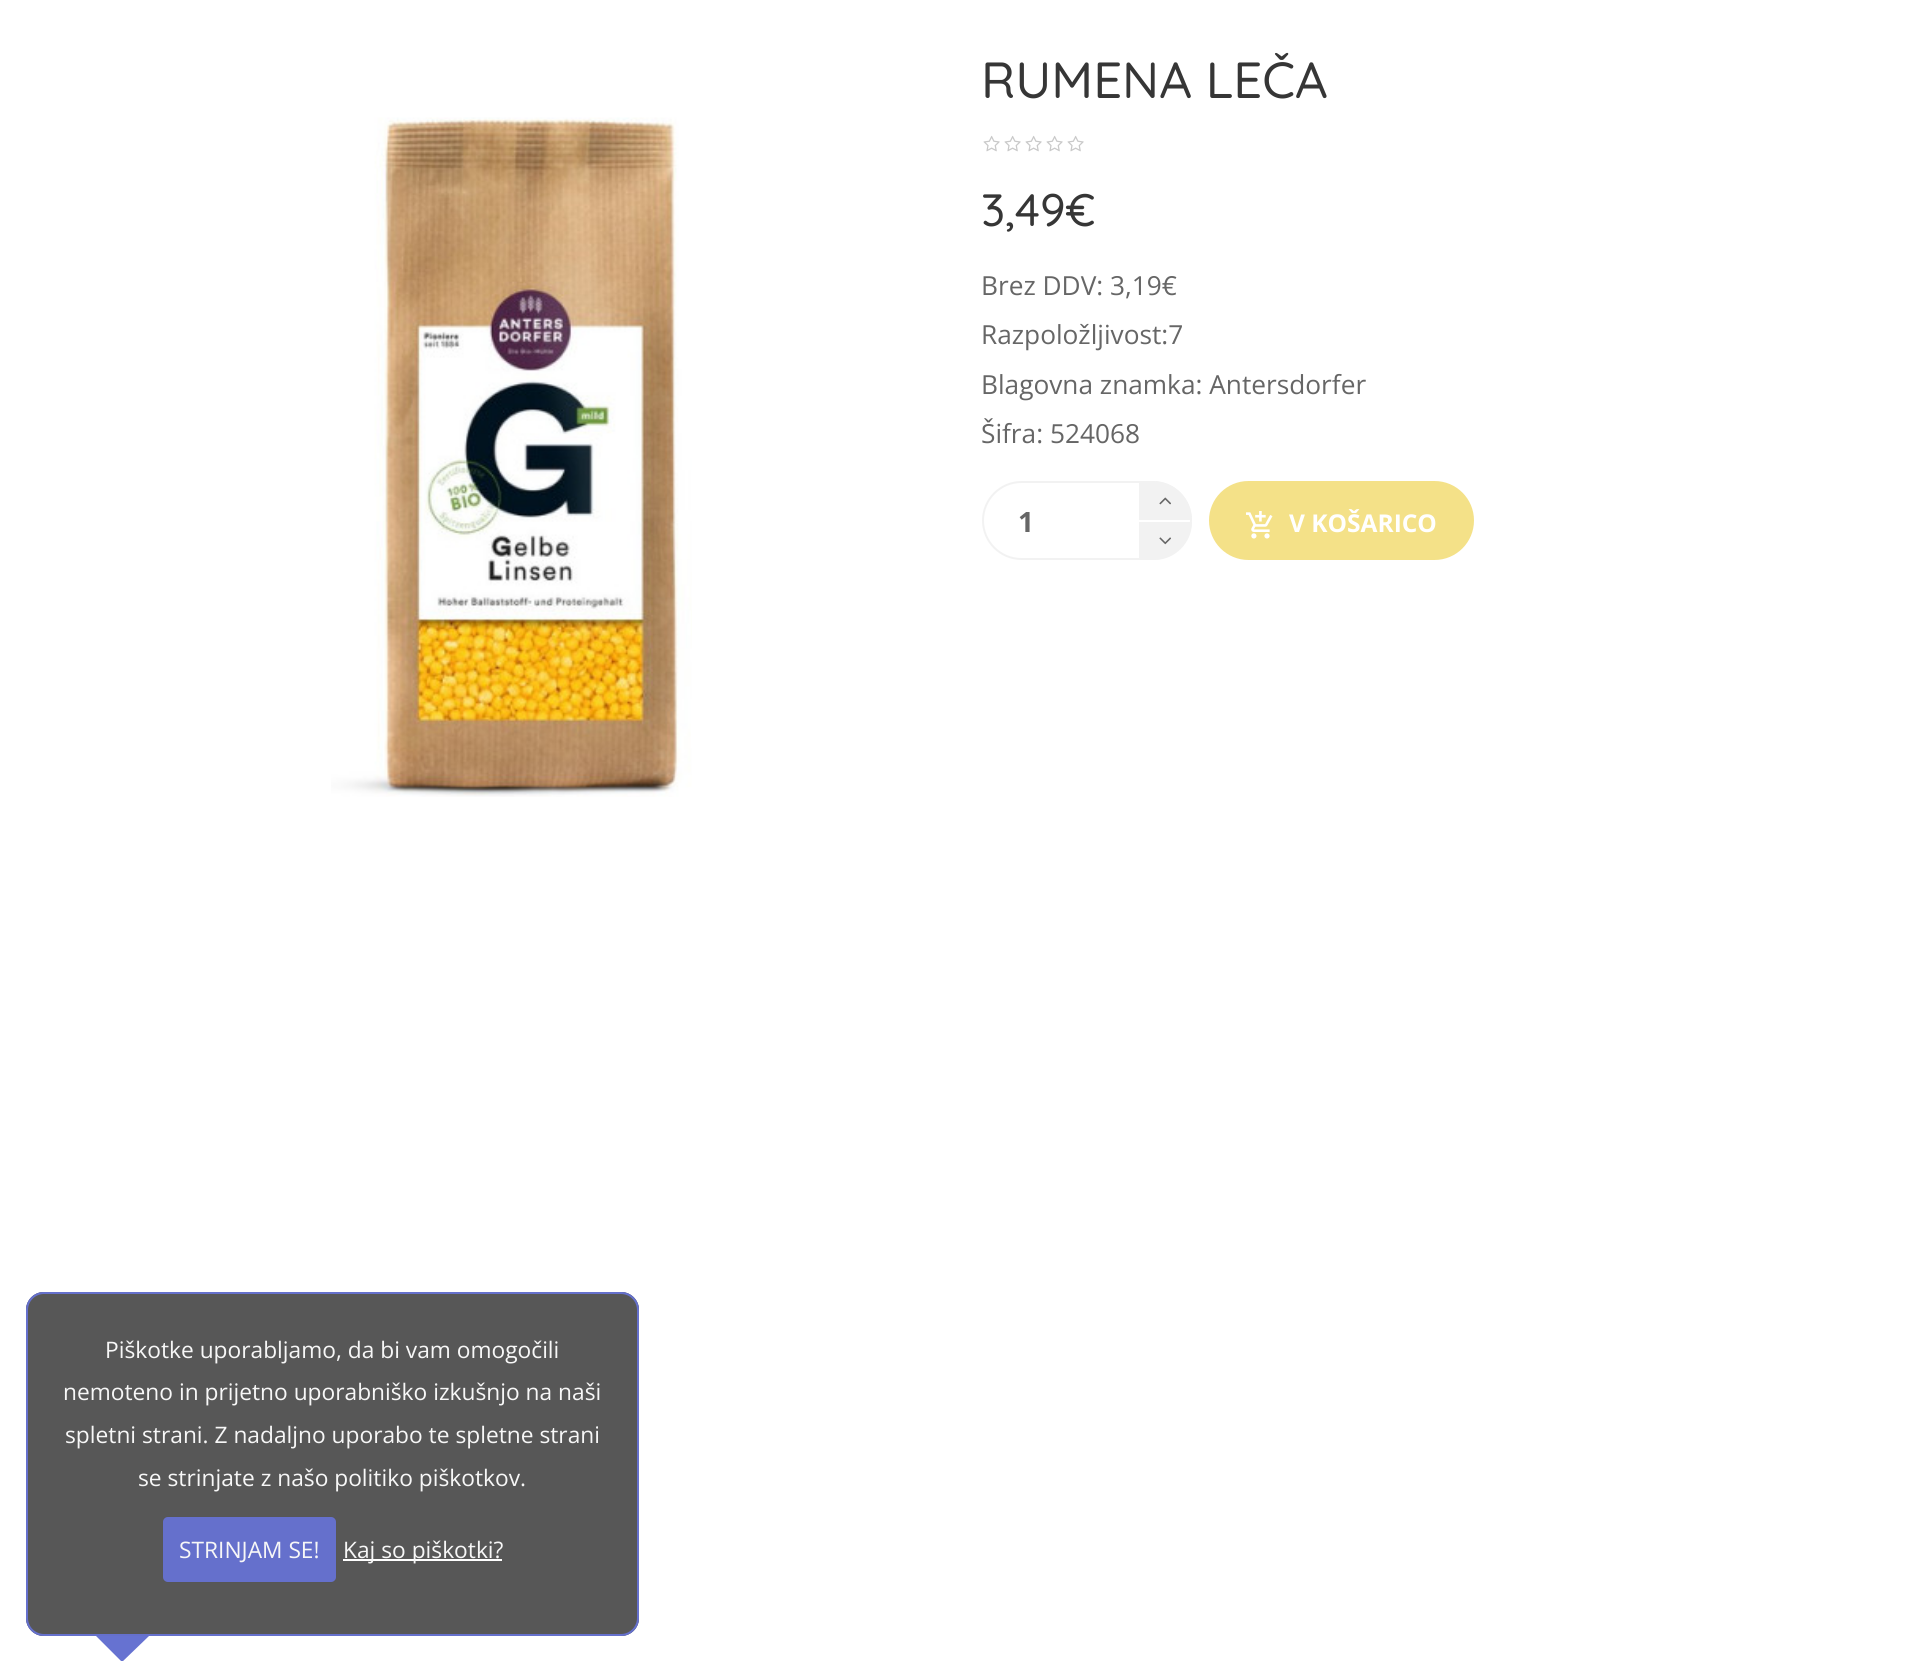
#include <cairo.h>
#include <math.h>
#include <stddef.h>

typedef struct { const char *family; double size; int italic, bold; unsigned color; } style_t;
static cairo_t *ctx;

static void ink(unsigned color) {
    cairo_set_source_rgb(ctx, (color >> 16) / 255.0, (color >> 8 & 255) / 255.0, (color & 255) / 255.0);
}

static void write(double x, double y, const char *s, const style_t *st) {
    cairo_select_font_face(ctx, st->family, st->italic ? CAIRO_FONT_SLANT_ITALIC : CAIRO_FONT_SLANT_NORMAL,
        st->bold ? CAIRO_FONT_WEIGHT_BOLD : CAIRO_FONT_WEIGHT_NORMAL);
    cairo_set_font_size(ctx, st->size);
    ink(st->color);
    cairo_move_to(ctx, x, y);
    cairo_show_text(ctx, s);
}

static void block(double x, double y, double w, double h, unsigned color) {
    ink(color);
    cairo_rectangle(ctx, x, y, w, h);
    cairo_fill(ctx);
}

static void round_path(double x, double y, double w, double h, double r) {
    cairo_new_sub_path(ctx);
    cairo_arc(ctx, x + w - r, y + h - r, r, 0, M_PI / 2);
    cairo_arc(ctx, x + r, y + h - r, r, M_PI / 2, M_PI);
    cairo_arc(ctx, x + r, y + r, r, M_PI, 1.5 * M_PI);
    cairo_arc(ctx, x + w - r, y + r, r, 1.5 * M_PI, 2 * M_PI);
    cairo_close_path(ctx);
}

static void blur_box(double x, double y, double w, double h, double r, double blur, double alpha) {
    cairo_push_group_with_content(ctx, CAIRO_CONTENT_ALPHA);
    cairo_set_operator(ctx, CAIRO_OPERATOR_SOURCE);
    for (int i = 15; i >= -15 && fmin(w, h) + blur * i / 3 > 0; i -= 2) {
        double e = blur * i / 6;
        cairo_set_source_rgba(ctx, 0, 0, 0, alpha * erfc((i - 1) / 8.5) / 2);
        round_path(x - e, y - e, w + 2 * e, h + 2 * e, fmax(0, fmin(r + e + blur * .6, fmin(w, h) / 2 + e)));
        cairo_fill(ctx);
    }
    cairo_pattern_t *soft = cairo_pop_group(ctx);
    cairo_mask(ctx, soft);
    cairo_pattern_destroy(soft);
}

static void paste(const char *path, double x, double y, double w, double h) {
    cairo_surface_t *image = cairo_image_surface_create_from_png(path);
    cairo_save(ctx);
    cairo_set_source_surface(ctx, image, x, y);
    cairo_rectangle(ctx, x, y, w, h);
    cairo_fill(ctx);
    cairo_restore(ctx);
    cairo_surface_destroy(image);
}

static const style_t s1 = {"Quicksand Medium", 50.75, 0, 0, 0x363636};
static const style_t s2 = {"Quicksand Medium", 45.5, 0, 0, 0x363636};
static const style_t s3 = {"Open Sans", 26.25, 0, 0, 0x666666};
static const style_t s4 = {"Open Sans", 28, 0, 1, 0x666666};
static const style_t s5 = {"Open Sans", 24.5, 0, 1, 0xffffff};
static const style_t s6 = {"Open Sans", 22.75, 0, 0, 0xf7f7f7};

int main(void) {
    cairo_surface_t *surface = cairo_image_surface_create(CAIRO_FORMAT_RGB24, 1908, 1661);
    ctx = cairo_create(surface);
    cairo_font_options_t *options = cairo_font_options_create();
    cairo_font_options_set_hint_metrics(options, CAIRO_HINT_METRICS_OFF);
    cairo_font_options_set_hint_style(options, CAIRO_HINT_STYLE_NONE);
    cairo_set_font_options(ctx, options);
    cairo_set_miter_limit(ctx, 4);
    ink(0xffffff);
    cairo_paint(ctx);
    paste("pic1.png", 331, 117, 361, 680);
    write(981, 98, "RUMENA LEČA", &s1);
    paste("pic2.png", 983, 135, 17, 17);
    paste("pic2.png", 1004, 135, 17, 17);
    paste("pic3.png", 1025, 135, 17, 17);
    paste("pic3.png", 1046, 135, 17, 17);
    paste("pic3.png", 1067, 135, 17, 17);
    write(981, 226, "3,49€", &s2);
    write(981, 295, "Brez DDV: 3,19€", &s3);
    write(981, 344, "Razpoložljivost:7", &s3);
    write(981, 394, "Blagovna znamka: Antersdorfer", &s3);
    write(981, 443, "Šifra: 524068", &s3);
    round_path(983, 482, 208, 77, 38.5);
    ink(0xf2f2f2);
    cairo_stroke(ctx);
    cairo_new_path(ctx);
    cairo_move_to(ctx, 1139, 481);
    cairo_line_to(ctx, 1153, 481);
    cairo_curve_to(ctx, 1174.5, 481, 1192, 498.5, 1192, 520);
    cairo_line_to(ctx, 1139, 520);
    cairo_close_path(ctx);
    cairo_fill(ctx);
    paste("pic4.png", 1159, 497, 12, 8);
    write(1018, 532, "1", &s4);
    ink(0xf2f2f2);
    cairo_new_path(ctx);
    cairo_move_to(ctx, 1139, 522);
    cairo_line_to(ctx, 1192, 522);
    cairo_curve_to(ctx, 1192, 543, 1175, 560, 1154, 560);
    cairo_line_to(ctx, 1139, 560);
    cairo_close_path(ctx);
    cairo_fill(ctx);
    paste("pic5.png", 1159, 537, 12, 8);
    ink(0xf4e188);
    round_path(1210, 482, 263, 77, 38.5);
    cairo_fill_preserve(ctx);
    cairo_stroke(ctx);
    paste("pic6.png", 1246, 511, 27, 28);
    write(1289, 532, "V KOŠARICO", &s5);
    ink(0x666666);
    round_path(27, 1293, 611, 342, 17);
    cairo_fill_preserve(ctx);
    ink(0x6e79d3);
    cairo_stroke(ctx);
    ink(0x0d0d0d);
    blur_box(163, 1517, 173, 65, 5, 2, 0.25);
    ink(0x6e79d3);
    round_path(163, 1517, 173, 65, 5);
    cairo_fill(ctx);
    cairo_set_source_rgba(ctx, 0.337, 0.337, 0.337, 0.9);
    round_path(26, 1292, 613, 344, 18);
    cairo_fill(ctx);
    round_path(27, 1293, 611, 342, 17);
    cairo_set_source_rgba(ctx, 0.4, 0.447, 0.82, 0.95);
    cairo_stroke(ctx);
    write(105, 1358, "Piškotke uporabljamo, da bi vam omogočili", &s6);
    write(63, 1400, "nemoteno in prijetno uporabniško izkušnjo na naši", &s6);
    write(65, 1443, "spletni strani. Z nadaljno uporabo te spletne strani", &s6);
    write(138, 1486, "se strinjate z našo politiko piškotkov.", &s6);
    cairo_set_source_rgba(ctx, 0.4, 0.447, 0.82, 0.95);
    round_path(163, 1517, 173, 65, 5);
    cairo_fill(ctx);
    write(179, 1558, "STRINJAM SE!", &s6);
    block(343, 1559, 159, 2, 0xffffff);
    write(343, 1558, "Kaj so piškotki?", &s6);
    ink(0x6672d1);
    cairo_new_path(ctx);
    cairo_move_to(ctx, 96, 1636);
    cairo_line_to(ctx, 149, 1636);
    cairo_line_to(ctx, 122, 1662);
    cairo_close_path(ctx);
    cairo_fill(ctx);
    cairo_surface_write_to_png(surface, "screenshot.png");
    cairo_font_options_destroy(options);
    cairo_destroy(ctx);
    cairo_surface_destroy(surface);
    return 0;
}
